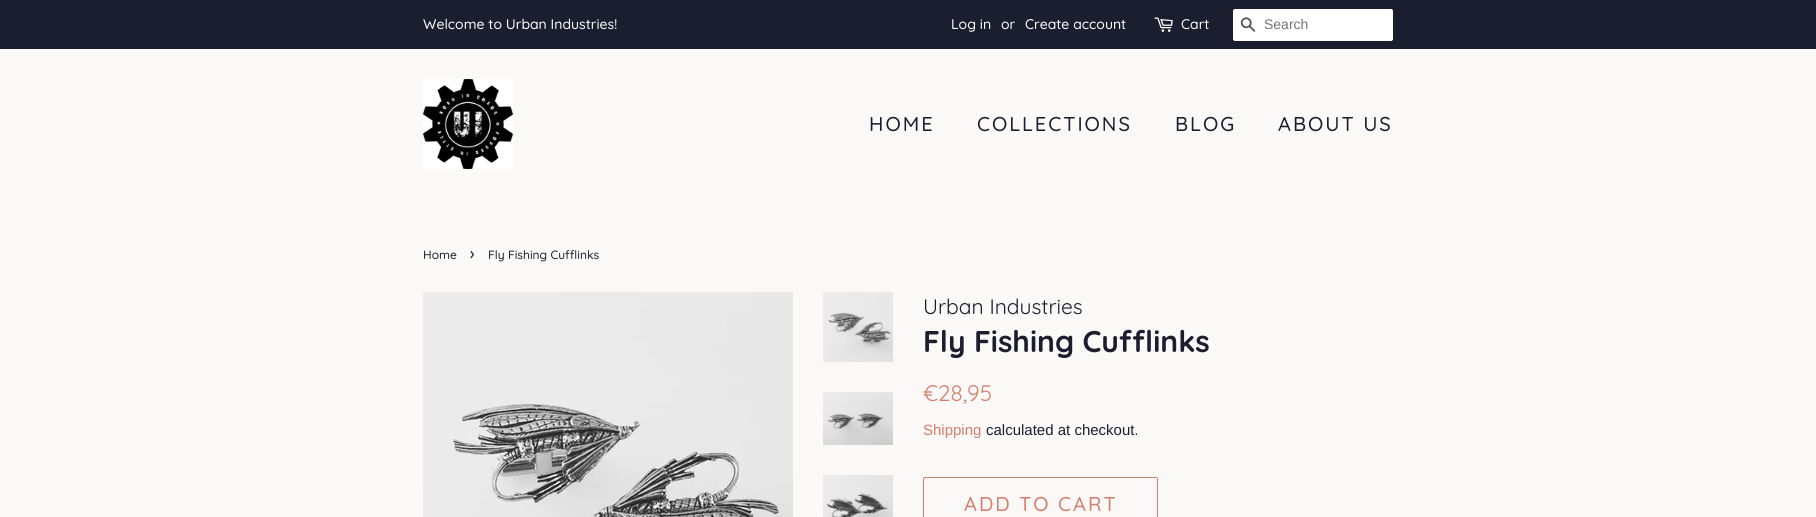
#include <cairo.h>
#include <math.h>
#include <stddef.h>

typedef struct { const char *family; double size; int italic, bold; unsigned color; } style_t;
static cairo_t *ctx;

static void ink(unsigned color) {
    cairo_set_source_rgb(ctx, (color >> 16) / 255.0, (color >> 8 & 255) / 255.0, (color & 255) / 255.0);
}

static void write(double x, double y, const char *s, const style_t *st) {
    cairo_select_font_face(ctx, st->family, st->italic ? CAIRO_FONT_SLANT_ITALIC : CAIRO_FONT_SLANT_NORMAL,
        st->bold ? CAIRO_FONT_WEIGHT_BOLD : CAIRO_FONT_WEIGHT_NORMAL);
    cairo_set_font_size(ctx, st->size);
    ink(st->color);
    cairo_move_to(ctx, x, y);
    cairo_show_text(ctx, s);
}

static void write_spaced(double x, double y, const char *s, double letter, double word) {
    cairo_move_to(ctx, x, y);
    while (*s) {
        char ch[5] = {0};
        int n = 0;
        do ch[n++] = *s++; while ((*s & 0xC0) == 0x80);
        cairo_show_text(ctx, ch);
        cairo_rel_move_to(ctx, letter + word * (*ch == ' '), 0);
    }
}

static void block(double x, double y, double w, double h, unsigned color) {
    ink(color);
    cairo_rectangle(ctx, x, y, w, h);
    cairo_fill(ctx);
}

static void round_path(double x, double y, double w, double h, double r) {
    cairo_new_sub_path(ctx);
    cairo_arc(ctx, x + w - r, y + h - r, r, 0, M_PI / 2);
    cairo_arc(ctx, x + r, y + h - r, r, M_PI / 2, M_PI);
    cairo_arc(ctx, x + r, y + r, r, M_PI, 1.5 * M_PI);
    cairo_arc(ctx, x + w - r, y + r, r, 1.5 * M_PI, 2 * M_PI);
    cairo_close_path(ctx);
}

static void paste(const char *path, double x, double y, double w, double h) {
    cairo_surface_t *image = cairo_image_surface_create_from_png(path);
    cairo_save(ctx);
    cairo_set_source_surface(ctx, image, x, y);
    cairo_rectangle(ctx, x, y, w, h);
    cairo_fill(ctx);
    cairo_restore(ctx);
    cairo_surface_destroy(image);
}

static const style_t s1 = {"Quicksand Medium", 14, 0, 0, 0xffffff};
static const style_t s2 = {"Liberation Sans", 14, 0, 0, 0x757575};
static const style_t s3 = {"Quicksand Medium", 12, 0, 0, 0x1b1e2f};
static const style_t s4 = {"Quicksand Medium", 17, 0, 0, 0x1b1e2f};
static const style_t s5 = {"Quicksand", 21, 0, 0, 0x1b1e2f};
static const style_t s6 = {"Quicksand", 30, 0, 1, 0x1b1e2f};
static const style_t s7 = {"Quicksand", 22.5, 0, 0, 0xd77e6a};
static const style_t s8 = {"Liberation Sans", 15, 0, 0, 0xd77e6a};
static const style_t s9 = {"Liberation Sans", 15, 0, 0, 0x1b1e2f};

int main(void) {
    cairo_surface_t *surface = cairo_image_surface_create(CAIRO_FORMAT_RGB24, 1816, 517);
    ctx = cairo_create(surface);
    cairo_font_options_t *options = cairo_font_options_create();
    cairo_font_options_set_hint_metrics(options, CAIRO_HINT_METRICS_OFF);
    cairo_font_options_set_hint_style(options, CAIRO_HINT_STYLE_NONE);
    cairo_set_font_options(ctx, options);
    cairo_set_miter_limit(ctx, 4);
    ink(0xfaf9f7);
    cairo_paint(ctx);
    block(0, 0, 1816, 49, 0x1b1e2f);
    write(423, 29, "Welcome to Urban Industries!", &s1);
    write(951, 29, "Log in", &s1);
    write(1001, 29, "or", &s1);
    write(1025, 29, "Create account", &s1);
    paste("pic1.png", 1154, 17, 19, 15);
    write(1181, 29, "Cart", &s1);
    round_path(1233, 9, 160, 32, 2);
    cairo_fill(ctx);
    paste("pic2.png", 1240, 17, 16, 15);
    write(1264, 29, "Search", &s2);
    paste("pic3.png", 423, 79, 90, 90);
    cairo_select_font_face(ctx, "Quicksand Medium", CAIRO_FONT_SLANT_NORMAL, CAIRO_FONT_WEIGHT_NORMAL);
    cairo_set_font_size(ctx, 20);
    ink(0x1b1e2f);
    write_spaced(869, 131, "HOME", 2, 0);
    write_spaced(977, 131, "COLLECTIONS", 2, 0);
    write_spaced(1175, 131, "BLOG", 2, 0);
    write_spaced(1278, 131, "ABOUT US", 2, 0);
    write(423, 259, "Home", &s3);
    write(470, 259, "›", &s4);
    write(488, 259, "Fly Fishing Cufflinks", &s3);
    paste("pic4.png", 423, 292, 370, 225);
    paste("pic5.png", 823, 292, 70, 70);
    paste("pic6.png", 823, 392, 70, 53);
    paste("pic7.png", 823, 475, 70, 42);
    write(923, 314, "Urban Industries", &s5);
    write(923, 352, "Fly Fishing Cufflinks", &s6);
    write(923, 401, "€28,95", &s7);
    write(923, 435, "Shipping", &s8);
    write(986, 435, "calculated at checkout.", &s9);
    round_path(923.5, 477.5, 234, 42, 1.5);
    ink(0xd77e6a);
    cairo_set_line_width(ctx, 1);
    cairo_stroke(ctx);
    cairo_select_font_face(ctx, "Quicksand Medium", CAIRO_FONT_SLANT_NORMAL, CAIRO_FONT_WEIGHT_NORMAL);
    cairo_set_font_size(ctx, 20);
    write_spaced(964, 511, "ADD TO CART", 2, 0);
    cairo_surface_write_to_png(surface, "screenshot.png");
    cairo_font_options_destroy(options);
    cairo_destroy(ctx);
    cairo_surface_destroy(surface);
    return 0;
}
